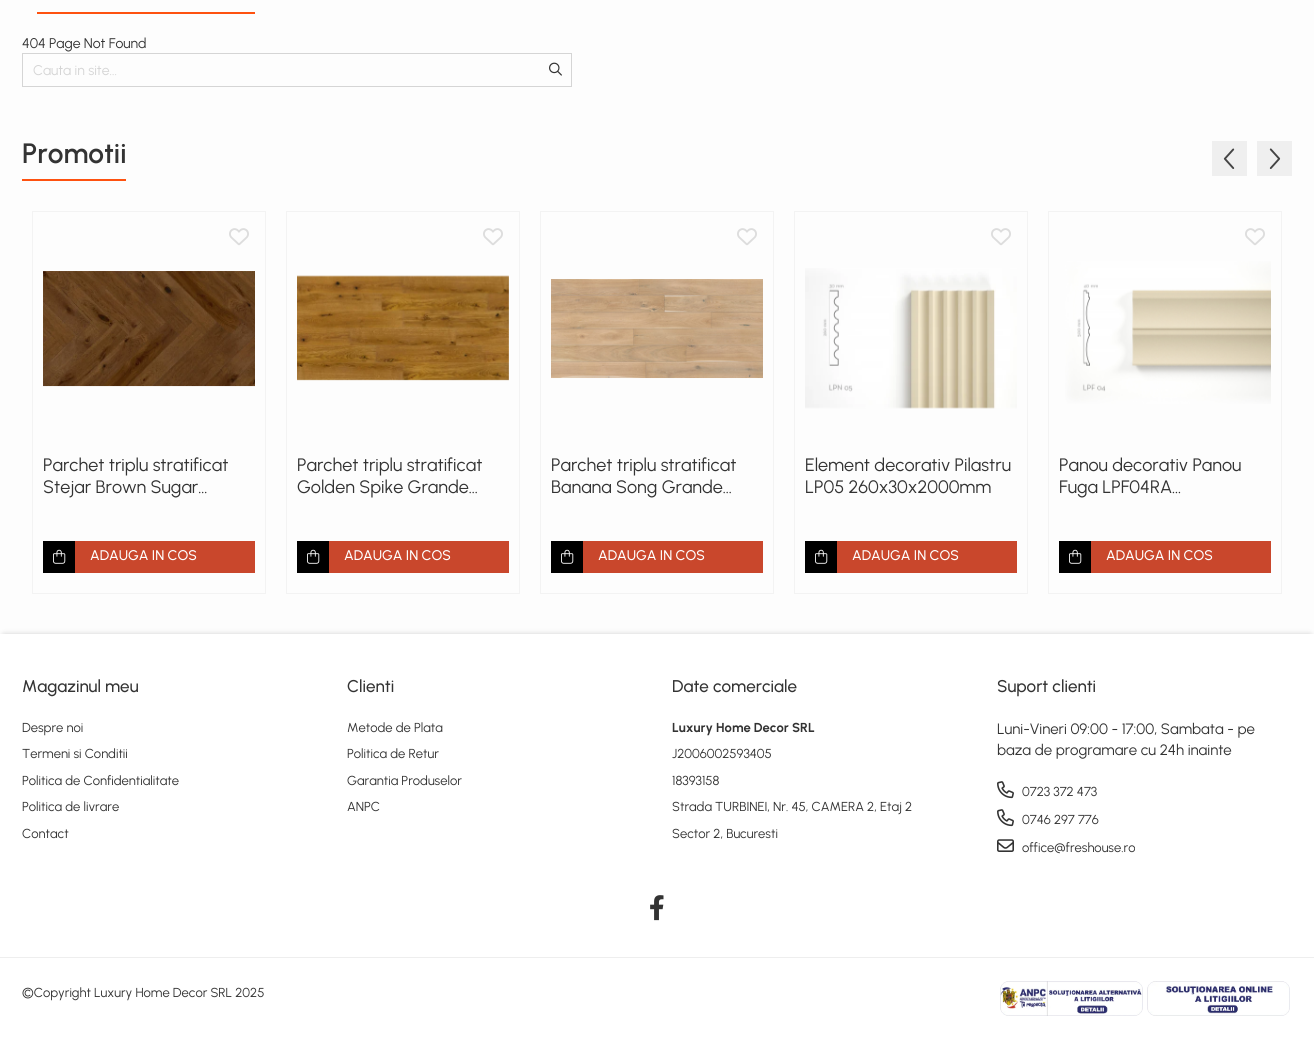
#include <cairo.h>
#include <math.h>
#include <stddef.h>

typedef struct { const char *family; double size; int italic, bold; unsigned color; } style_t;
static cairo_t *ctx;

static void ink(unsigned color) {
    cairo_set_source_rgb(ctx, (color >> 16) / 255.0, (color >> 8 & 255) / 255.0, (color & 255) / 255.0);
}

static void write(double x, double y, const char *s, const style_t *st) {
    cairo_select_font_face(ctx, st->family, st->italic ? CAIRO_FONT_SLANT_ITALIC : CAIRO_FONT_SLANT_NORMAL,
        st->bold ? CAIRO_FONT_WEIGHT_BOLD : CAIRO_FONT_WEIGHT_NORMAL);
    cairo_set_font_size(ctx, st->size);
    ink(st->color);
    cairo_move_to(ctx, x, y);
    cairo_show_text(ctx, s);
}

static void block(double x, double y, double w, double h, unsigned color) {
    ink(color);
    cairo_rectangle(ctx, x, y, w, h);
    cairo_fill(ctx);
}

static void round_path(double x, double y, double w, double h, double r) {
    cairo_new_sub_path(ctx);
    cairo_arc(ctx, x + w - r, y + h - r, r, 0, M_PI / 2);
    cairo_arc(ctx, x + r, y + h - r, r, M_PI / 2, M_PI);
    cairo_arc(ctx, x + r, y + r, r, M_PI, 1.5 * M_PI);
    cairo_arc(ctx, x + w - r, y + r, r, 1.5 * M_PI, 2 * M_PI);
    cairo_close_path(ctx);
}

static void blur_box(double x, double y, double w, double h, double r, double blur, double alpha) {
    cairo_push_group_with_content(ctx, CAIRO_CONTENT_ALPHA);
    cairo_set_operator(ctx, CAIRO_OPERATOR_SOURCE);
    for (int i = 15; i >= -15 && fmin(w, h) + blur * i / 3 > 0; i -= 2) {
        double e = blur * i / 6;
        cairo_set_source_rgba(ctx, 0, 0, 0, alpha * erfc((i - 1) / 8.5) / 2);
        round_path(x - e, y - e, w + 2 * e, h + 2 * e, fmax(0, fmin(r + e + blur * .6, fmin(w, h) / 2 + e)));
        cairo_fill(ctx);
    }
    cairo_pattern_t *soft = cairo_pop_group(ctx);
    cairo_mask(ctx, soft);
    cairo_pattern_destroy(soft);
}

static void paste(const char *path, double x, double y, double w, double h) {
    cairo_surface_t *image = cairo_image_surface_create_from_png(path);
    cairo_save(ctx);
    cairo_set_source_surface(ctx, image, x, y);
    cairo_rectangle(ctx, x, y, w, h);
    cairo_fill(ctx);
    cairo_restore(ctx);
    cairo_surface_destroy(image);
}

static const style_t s1 = {"Urbanist", 14, 0, 0, 0x333333};
static const style_t s2 = {"Urbanist", 14, 0, 0, 0xd5d5d5};
static const style_t s3 = {"Urbanist SemiBold", 28, 0, 0, 0x333333};
static const style_t s4 = {"Urbanist", 18, 0, 0, 0x333333};
static const style_t s5 = {"Urbanist Medium", 14, 0, 0, 0xffffff};
static const style_t s6 = {"Urbanist Medium", 17, 0, 0, 0x333333};
static const style_t s7 = {"Urbanist", 13, 0, 0, 0x333333};
static const style_t s8 = {"Urbanist", 13, 0, 1, 0x333333};
static const style_t s9 = {"Urbanist", 15, 0, 0, 0x333333};

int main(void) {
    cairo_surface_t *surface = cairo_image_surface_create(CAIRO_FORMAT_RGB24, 1314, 1059);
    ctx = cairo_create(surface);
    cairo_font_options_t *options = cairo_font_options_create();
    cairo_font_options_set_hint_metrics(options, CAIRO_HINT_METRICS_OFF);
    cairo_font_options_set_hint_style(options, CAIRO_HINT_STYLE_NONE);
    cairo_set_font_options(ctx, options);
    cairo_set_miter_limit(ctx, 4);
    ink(0xfdfdfd);
    cairo_paint(ctx);
    block(37, 12, 218, 2, 0xfe5210);
    write(22, 48, "404 Page Not Found", &s1);
    cairo_rectangle(ctx, 22.5, 53.5, 549, 33);
    ink(0xd5d5d5);
    cairo_set_line_width(ctx, 1);
    cairo_stroke(ctx);
    write(33, 75, "Cauta in site...", &s2);
    paste("pic1.png", 549, 62, 13, 14);
    block(22, 179, 104, 2, 0xfe5210);
    write(22, 163, "Promotii", &s3);
    block(1212, 141, 35, 35, 0xefefef);
    paste("pic2.png", 1223, 148, 12, 21);
    block(1257, 141, 35, 35, 0xefefef);
    paste("pic3.png", 1269, 148, 12, 21);
    cairo_rectangle(ctx, 32.5, 211.5, 233, 382);
    ink(0xf3f3f3);
    cairo_stroke(ctx);
    paste("pic4.png", 43, 271, 212, 116);
    write(43, 471, "Parchet triplu stratificat", &s4);
    write(43, 493, "Stejar Brown Sugar…", &s4);
    paste("pic5.png", 229, 228, 20, 18);
    block(75, 541, 180, 32, 0xc9472c);
    block(43, 541, 32, 32, 0x000000);
    paste("pic6.png", 53, 549, 13, 15);
    write(90, 560, "ADAUGA IN COS", &s5);
    cairo_rectangle(ctx, 286.5, 211.5, 233, 382);
    ink(0xf3f3f3);
    cairo_stroke(ctx);
    paste("pic7.png", 297, 275, 212, 106);
    write(297, 471, "Parchet triplu stratificat", &s4);
    write(297, 493, "Golden Spike Grande…", &s4);
    paste("pic5.png", 483, 228, 20, 18);
    block(329, 541, 180, 32, 0xc9472c);
    block(297, 541, 32, 32, 0x000000);
    paste("pic6.png", 307, 549, 13, 15);
    write(344, 560, "ADAUGA IN COS", &s5);
    cairo_rectangle(ctx, 540.5, 211.5, 233, 382);
    ink(0xf3f3f3);
    cairo_stroke(ctx);
    paste("pic8.png", 551, 279, 212, 100);
    write(551, 471, "Parchet triplu stratificat", &s4);
    write(551, 493, "Banana Song Grande…", &s4);
    paste("pic5.png", 737, 228, 20, 18);
    block(583, 541, 180, 32, 0xc9472c);
    block(551, 541, 32, 32, 0x000000);
    paste("pic6.png", 561, 549, 13, 15);
    write(598, 560, "ADAUGA IN COS", &s5);
    cairo_rectangle(ctx, 794.5, 211.5, 233, 382);
    ink(0xf3f3f3);
    cairo_stroke(ctx);
    paste("pic9.png", 805, 268, 212, 141);
    write(805, 471, "Element decorativ Pilastru", &s4);
    write(805, 493, "LP05 260x30x2000mm", &s4);
    paste("pic5.png", 991, 228, 20, 18);
    block(837, 541, 180, 32, 0xc9472c);
    block(805, 541, 32, 32, 0x000000);
    paste("pic6.png", 815, 549, 13, 15);
    write(852, 560, "ADAUGA IN COS", &s5);
    cairo_rectangle(ctx, 1048.5, 211.5, 233, 382);
    ink(0xf3f3f3);
    cairo_stroke(ctx);
    paste("pic10.png", 1065, 261, 206, 143);
    write(1059, 471, "Panou decorativ Panou", &s4);
    write(1059, 493, "Fuga LPF04RA…", &s4);
    paste("pic5.png", 1245, 228, 20, 18);
    block(1091, 541, 180, 32, 0xc9472c);
    block(1059, 541, 32, 32, 0x000000);
    paste("pic6.png", 1069, 549, 13, 15);
    write(1106, 560, "ADAUGA IN COS", &s5);
    ink(0x000000);
    blur_box(4, 636, 1306, 417, 0, 3.5, 0.3);
    block(0, 634, 1314, 425, 0xffffff);
    write(22, 692, "Magazinul meu", &s6);
    write(22, 732, "Despre noi", &s7);
    write(22, 758, "Termeni si Conditii", &s7);
    write(22, 785, "Politica de Confidentialitate", &s7);
    write(22, 811, "Politica de livrare", &s7);
    write(22, 838, "Contact", &s7);
    write(347, 692, "Clienti", &s6);
    write(347, 732, "Metode de Plata", &s7);
    write(347, 758, "Politica de Retur", &s7);
    write(347, 785, "Garantia Produselor", &s7);
    write(347, 811, "ANPC", &s7);
    write(672, 692, "Date comerciale", &s6);
    write(672, 732, "Luxury Home Decor SRL", &s8);
    write(672, 758, "J2006002593405", &s7);
    write(672, 785, "18393158", &s7);
    write(672, 811, "Strada TURBINEI, Nr. 45, CAMERA 2, Etaj 2", &s7);
    write(672, 838, "Sector 2, Bucuresti", &s7);
    write(997, 692, "Suport clienti", &s6);
    write(997, 734, "Luni-Vineri 09:00 - 17:00, Sambata - pe", &s9);
    write(997, 755, "baza de programare cu 24h inainte", &s9);
    paste("pic11.png", 997, 781, 17, 18);
    write(1022, 796, "0723 372 473", &s7);
    paste("pic11.png", 997, 809, 17, 18);
    write(1022, 824, "0746 297 776", &s7);
    paste("pic12.png", 997, 839, 17, 13);
    write(1022, 852, "office@freshouse.ro", &s7);
    paste("pic13.png", 650, 895, 14, 26);
    block(0, 957, 1314, 1, 0xeeeeee);
    write(22, 997, "©Copyright Luxury Home Decor SRL 2025", &s7);
    paste("pic14.png", 1000, 981, 143, 35);
    paste("pic15.png", 1147, 981, 143, 35);
    cairo_surface_write_to_png(surface, "screenshot.png");
    cairo_font_options_destroy(options);
    cairo_destroy(ctx);
    cairo_surface_destroy(surface);
    return 0;
}
